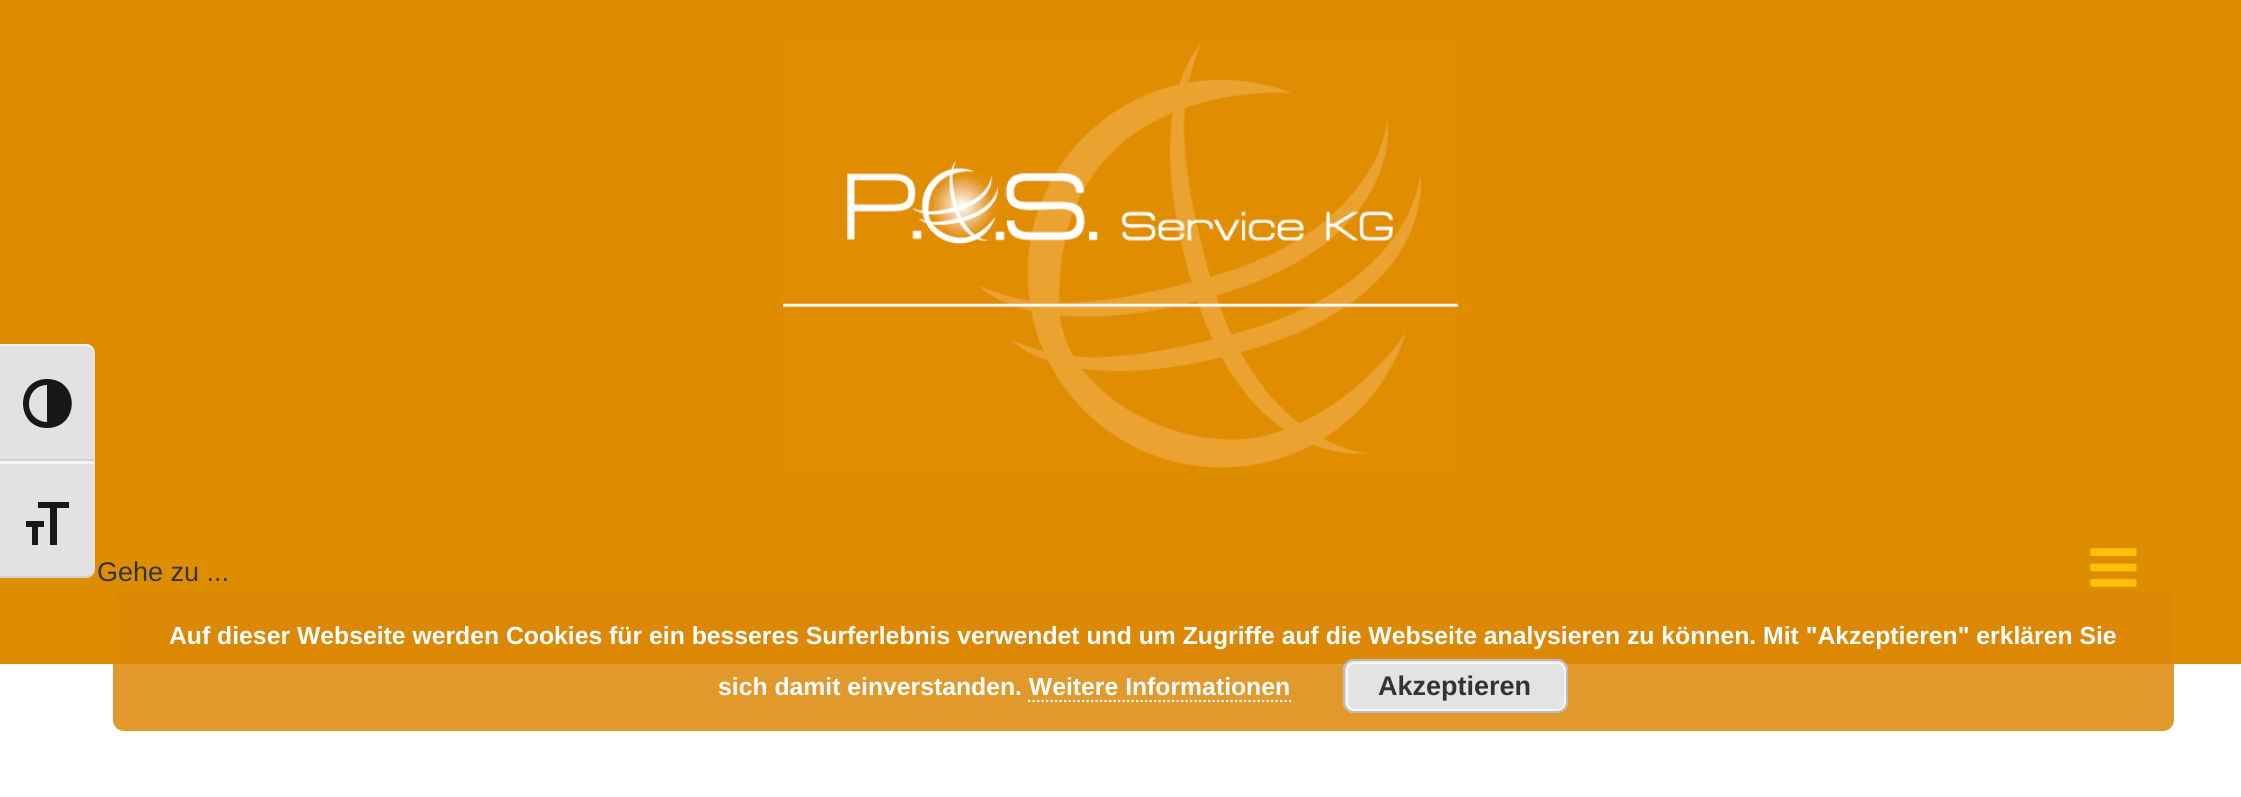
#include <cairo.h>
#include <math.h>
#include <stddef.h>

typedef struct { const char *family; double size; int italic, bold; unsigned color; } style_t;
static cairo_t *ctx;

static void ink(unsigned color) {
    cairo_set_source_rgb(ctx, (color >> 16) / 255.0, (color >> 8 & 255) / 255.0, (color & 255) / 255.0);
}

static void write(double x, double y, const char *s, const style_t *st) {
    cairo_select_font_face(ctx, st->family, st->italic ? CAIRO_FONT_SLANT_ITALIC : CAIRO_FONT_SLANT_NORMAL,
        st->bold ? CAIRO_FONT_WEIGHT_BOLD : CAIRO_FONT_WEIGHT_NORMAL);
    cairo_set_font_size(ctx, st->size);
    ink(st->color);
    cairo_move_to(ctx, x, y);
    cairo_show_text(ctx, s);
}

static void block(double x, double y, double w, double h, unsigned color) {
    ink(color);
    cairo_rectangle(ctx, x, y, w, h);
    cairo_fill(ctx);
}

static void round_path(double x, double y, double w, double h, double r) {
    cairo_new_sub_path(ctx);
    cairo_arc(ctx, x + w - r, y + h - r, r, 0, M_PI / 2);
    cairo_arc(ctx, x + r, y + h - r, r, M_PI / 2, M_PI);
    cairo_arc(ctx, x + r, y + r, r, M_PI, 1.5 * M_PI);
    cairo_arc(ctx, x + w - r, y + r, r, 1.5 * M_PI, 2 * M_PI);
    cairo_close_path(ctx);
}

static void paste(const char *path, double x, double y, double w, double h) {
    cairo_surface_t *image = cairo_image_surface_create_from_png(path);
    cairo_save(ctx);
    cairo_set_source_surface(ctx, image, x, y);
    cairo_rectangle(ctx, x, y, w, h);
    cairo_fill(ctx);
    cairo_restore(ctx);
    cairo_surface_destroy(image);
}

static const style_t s1 = {"Liberation Sans", 27, 0, 0, 0x333333};
static const style_t s2 = {"Liberation Sans", 24.75, 0, 1, 0xffffff};
static const style_t s3 = {"Liberation Sans", 27, 0, 1, 0x333333};

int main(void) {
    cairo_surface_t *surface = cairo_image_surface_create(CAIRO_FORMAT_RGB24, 2241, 797);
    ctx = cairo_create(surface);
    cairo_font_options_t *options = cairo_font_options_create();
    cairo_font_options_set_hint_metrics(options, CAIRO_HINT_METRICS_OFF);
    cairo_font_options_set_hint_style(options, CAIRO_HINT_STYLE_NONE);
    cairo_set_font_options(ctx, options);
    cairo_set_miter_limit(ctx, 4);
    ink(0xffffff);
    cairo_paint(ctx);
    block(0, 0, 2241, 664, 0xdf8d00);
    ink(0xe2e2e2);
    cairo_new_path(ctx);
    cairo_move_to(ctx, 0, 344);
    cairo_line_to(ctx, 86, 344);
    cairo_curve_to(ctx, 91, 344, 95, 348, 95, 353);
    cairo_line_to(ctx, 95, 461);
    cairo_line_to(ctx, 0, 461);
    cairo_close_path(ctx);
    cairo_fill(ctx);
    ink(0xf5f5f5);
    cairo_new_path(ctx);
    cairo_move_to(ctx, 0, 346);
    cairo_line_to(ctx, 86, 346);
    cairo_curve_to(ctx, 90, 346, 94, 350, 94, 353);
    cairo_curve_to(ctx, 94, 349, 91, 345, 88, 344);
    cairo_line_to(ctx, 0, 344);
    cairo_close_path(ctx);
    cairo_fill(ctx);
    block(0, 459, 94, 2, 0xd2d2d2);
    ink(0x181818);
    cairo_new_path(ctx);
    cairo_move_to(ctx, 47, 379);
    cairo_curve_to(ctx, 15, 379, 15, 428, 47, 428);
    cairo_curve_to(ctx, 80, 428, 80, 379, 47, 379);
    cairo_close_path(ctx);
    cairo_move_to(ctx, 29, 404);
    cairo_curve_to(ctx, 29, 393, 37, 385, 47, 385);
    cairo_line_to(ctx, 47, 422);
    cairo_curve_to(ctx, 37, 422, 29, 414, 29, 404);
    cairo_close_path(ctx);
    cairo_fill(ctx);
    ink(0xe2e2e2);
    cairo_new_path(ctx);
    cairo_move_to(ctx, 0, 461);
    cairo_line_to(ctx, 95, 461);
    cairo_line_to(ctx, 95, 569);
    cairo_curve_to(ctx, 95, 574, 91, 578, 86, 578);
    cairo_line_to(ctx, 0, 578);
    cairo_close_path(ctx);
    cairo_fill(ctx);
    block(0, 461, 94, 3, 0xf5f5f5);
    ink(0xd2d2d2);
    cairo_new_path(ctx);
    cairo_move_to(ctx, 86, 578);
    cairo_curve_to(ctx, 90, 578, 94, 574, 94, 569);
    cairo_curve_to(ctx, 94, 573, 90, 576, 86, 576);
    cairo_line_to(ctx, 0, 576);
    cairo_line_to(ctx, 0, 578);
    cairo_close_path(ctx);
    cairo_fill(ctx);
    ink(0x181818);
    cairo_new_path(ctx);
    cairo_move_to(ctx, 26, 521);
    cairo_line_to(ctx, 44, 521);
    cairo_line_to(ctx, 44, 527);
    cairo_line_to(ctx, 38, 527);
    cairo_line_to(ctx, 38, 545);
    cairo_line_to(ctx, 32, 545);
    cairo_line_to(ctx, 32, 527);
    cairo_line_to(ctx, 26, 527);
    cairo_close_path(ctx);
    cairo_move_to(ctx, 69, 508);
    cairo_line_to(ctx, 57, 508);
    cairo_line_to(ctx, 57, 545);
    cairo_line_to(ctx, 50, 545);
    cairo_line_to(ctx, 50, 508);
    cairo_line_to(ctx, 38, 508);
    cairo_line_to(ctx, 38, 502);
    cairo_line_to(ctx, 69, 502);
    cairo_close_path(ctx);
    cairo_fill(ctx);
    paste("pic1.png", 783, 45, 675, 423);
    write(97, 581, "Gehe zu ...", &s1);
    paste("pic2.png", 2090, 548, 47, 39);
    cairo_set_source_rgba(ctx, 0.867, 0.529, 0.024, 0.85);
    round_path(113, 592, 2061, 139, 11);
    cairo_fill(ctx);
    write(169, 644, "Auf dieser Webseite werden Cookies für ein besseres Surferlebnis verwendet und um Zugriffe auf die Webseite analysieren zu können. Mit \"Akzeptieren\" erklären Sie", &s2);
    write(718, 695, "sich damit einverstanden. Weitere Informationen", &s2);
    ink(0xe3e3e3);
    round_path(1343, 659, 225, 54, 11);
    cairo_fill(ctx);
    round_path(1347, 663, 218, 47, 8);
    ink(0xf6f6f6);
    cairo_stroke(ctx);
    round_path(1344, 660, 223, 52, 10);
    ink(0xbbbbbb);
    cairo_stroke(ctx);
    write(1378, 695, "Akzeptieren", &s3);
    cairo_new_path(ctx);
    cairo_move_to(ctx, 1028, 701);
    cairo_line_to(ctx, 1291.5, 701);
    ink(0xffffff);
    cairo_set_line_width(ctx, 2.2);
    cairo_set_dash(ctx, (double[]){2.25, 2.25}, 2, 0);
    cairo_stroke(ctx);
    cairo_surface_write_to_png(surface, "screenshot.png");
    cairo_font_options_destroy(options);
    cairo_destroy(ctx);
    cairo_surface_destroy(surface);
    return 0;
}
